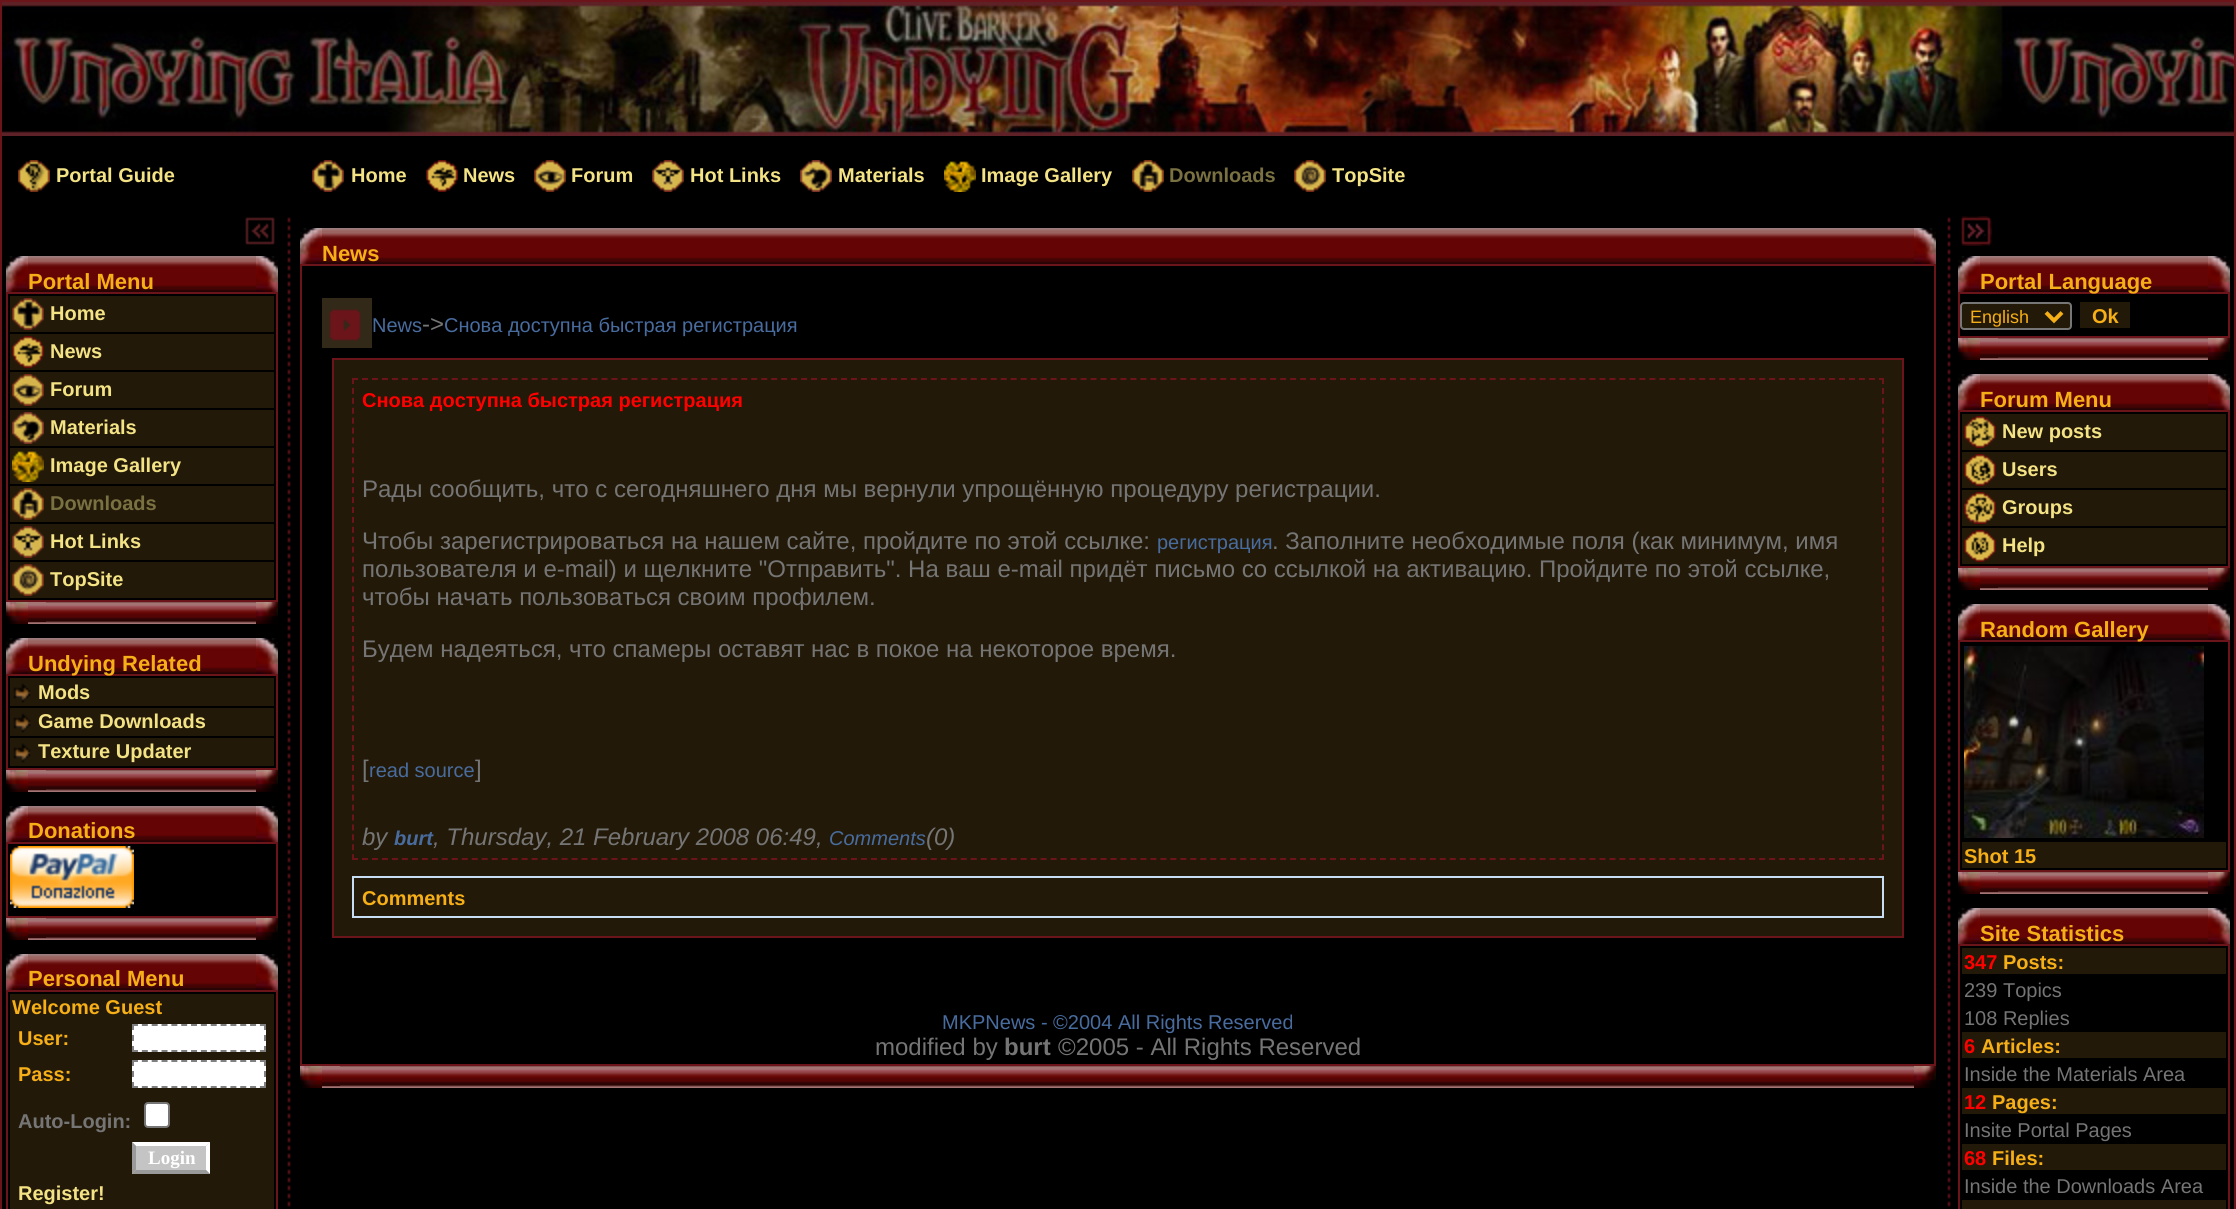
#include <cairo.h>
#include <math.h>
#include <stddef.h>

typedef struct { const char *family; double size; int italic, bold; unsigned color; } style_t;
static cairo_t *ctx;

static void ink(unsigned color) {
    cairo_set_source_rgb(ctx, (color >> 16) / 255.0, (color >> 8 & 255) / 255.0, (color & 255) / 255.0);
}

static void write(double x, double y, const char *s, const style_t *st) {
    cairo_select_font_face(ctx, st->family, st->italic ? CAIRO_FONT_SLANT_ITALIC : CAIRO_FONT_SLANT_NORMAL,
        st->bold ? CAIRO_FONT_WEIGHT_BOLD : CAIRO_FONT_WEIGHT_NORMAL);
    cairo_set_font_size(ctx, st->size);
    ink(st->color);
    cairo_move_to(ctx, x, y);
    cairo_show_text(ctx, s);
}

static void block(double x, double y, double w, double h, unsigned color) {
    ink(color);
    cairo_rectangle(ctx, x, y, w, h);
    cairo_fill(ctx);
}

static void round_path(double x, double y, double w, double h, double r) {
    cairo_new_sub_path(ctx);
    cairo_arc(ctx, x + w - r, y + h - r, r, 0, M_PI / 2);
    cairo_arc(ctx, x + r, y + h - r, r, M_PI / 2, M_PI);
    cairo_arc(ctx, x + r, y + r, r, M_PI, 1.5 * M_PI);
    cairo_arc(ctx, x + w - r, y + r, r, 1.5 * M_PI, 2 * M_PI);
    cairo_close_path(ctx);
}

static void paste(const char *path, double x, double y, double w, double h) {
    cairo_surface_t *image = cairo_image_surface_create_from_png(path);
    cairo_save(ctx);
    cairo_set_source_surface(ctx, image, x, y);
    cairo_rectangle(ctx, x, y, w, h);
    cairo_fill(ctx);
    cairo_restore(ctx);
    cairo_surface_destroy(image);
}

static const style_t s1 = {"Liberation Sans", 20, 0, 1, 0xf4e385};
static const style_t s2 = {"Liberation Sans", 20, 0, 1, 0x7a7142};
static const style_t s3 = {"Liberation Sans", 22, 0, 1, 0xf6af17};
static const style_t s4 = {"Liberation Sans", 20, 0, 1, 0xf6af17};
static const style_t s5 = {"Liberation Sans", 20, 0, 1, 0x757575};
static const style_t s6 = {"Liberation Serif", 19, 0, 1, 0xffffff};
static const style_t s7 = {"Liberation Sans", 20, 0, 0, 0x496c9f};
static const style_t s8 = {"Liberation Sans", 24, 0, 0, 0x757575};
static const style_t s9 = {"Liberation Sans", 20, 0, 1, 0xff0000};
static const style_t s10 = {"Liberation Sans", 24, 1, 0, 0x757575};
static const style_t s11 = {"Liberation Sans", 20, 1, 1, 0x496c9f};
static const style_t s12 = {"Liberation Sans", 20, 1, 0, 0x496c9f};
static const style_t s13 = {"Liberation Sans", 24, 0, 1, 0x757575};
static const style_t s14 = {"Liberation Sans", 18, 0, 0, 0xf6af17};
static const style_t s15 = {"Liberation Sans", 20, 0, 0, 0x757575};

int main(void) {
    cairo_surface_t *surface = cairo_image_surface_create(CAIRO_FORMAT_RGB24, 2236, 1209);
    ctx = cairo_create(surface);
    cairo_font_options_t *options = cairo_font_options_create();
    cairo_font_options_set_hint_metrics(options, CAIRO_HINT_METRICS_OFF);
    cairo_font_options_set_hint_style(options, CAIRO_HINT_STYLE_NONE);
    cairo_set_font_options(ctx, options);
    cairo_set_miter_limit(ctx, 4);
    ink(0x000000);
    cairo_paint(ctx);
    cairo_rectangle(ctx, 1, 1, 2234, 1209);
    ink(0x6b141a);
    cairo_stroke(ctx);
    paste("pic1.png", 2, 2, 2232, 134);
    paste("pic2.png", 18, 160, 32, 32);
    write(56, 182, "Portal Guide", &s1);
    paste("pic3.png", 312, 160, 32, 32);
    write(351, 182, "Home", &s1);
    paste("pic4.png", 426, 160, 32, 32);
    write(463, 182, "News", &s1);
    paste("pic5.png", 534, 160, 32, 32);
    write(571, 182, "Forum", &s1);
    paste("pic6.png", 652, 160, 32, 32);
    write(690, 182, "Hot Links", &s1);
    paste("pic7.png", 800, 160, 32, 32);
    write(838, 182, "Materials", &s1);
    paste("pic8.png", 944, 161, 32, 31);
    write(981, 182, "Image Gallery", &s1);
    paste("pic9.png", 1132, 160, 32, 32);
    write(1169, 182, "Downloads", &s2);
    paste("pic10.png", 1294, 160, 32, 32);
    write(1332, 182, "TopSite", &s1);
    paste("pic11.png", 245, 217, 30, 28);
    paste("pic12.png", 6, 256, 22, 36);
    paste("pic13.png", 28, 256, 228, 36);
    write(28, 289, "Portal Menu", &s3);
    paste("pic14.png", 256, 256, 22, 36);
    cairo_rectangle(ctx, 7, 293, 270, 308);
    ink(0x6b141a);
    cairo_stroke(ctx);
    block(10, 296, 264, 36, 0x221908);
    paste("pic15.png", 12, 298, 32, 32);
    write(50, 320, "Home", &s1);
    block(10, 334, 264, 36, 0x221908);
    paste("pic16.png", 12, 336, 32, 32);
    write(50, 358, "News", &s1);
    block(10, 372, 264, 36, 0x221908);
    paste("pic17.png", 12, 374, 32, 32);
    write(50, 396, "Forum", &s1);
    block(10, 410, 264, 36, 0x221908);
    paste("pic18.png", 12, 412, 32, 32);
    write(50, 434, "Materials", &s1);
    block(10, 448, 264, 36, 0x221908);
    paste("pic19.png", 12, 451, 32, 31);
    write(50, 472, "Image Gallery", &s1);
    block(10, 486, 264, 36, 0x221908);
    paste("pic20.png", 12, 488, 32, 32);
    write(50, 510, "Downloads", &s2);
    block(10, 524, 264, 36, 0x221908);
    paste("pic21.png", 12, 526, 32, 32);
    write(50, 548, "Hot Links", &s1);
    block(10, 562, 264, 36, 0x221908);
    paste("pic22.png", 12, 564, 32, 32);
    write(50, 586, "TopSite", &s1);
    paste("pic23.png", 6, 602, 22, 22);
    paste("pic24.png", 28, 602, 228, 22);
    paste("pic25.png", 28, 602, 18, 20);
    paste("pic26.png", 256, 602, 22, 22);
    paste("pic12.png", 6, 638, 22, 36);
    paste("pic13.png", 28, 638, 228, 36);
    cairo_rectangle(ctx, 7, 675, 270, 94);
    ink(0x6b141a);
    cairo_stroke(ctx);
    write(28, 671, "Undying Related", &s3);
    paste("pic14.png", 256, 638, 22, 36);
    block(10, 678, 264, 28, 0x221908);
    paste("pic27.png", 13, 683, 18, 20);
    write(38, 699, "Mods", &s1);
    block(10, 708, 264, 28, 0x221908);
    paste("pic27.png", 13, 713, 18, 20);
    write(38, 728, "Game Downloads", &s1);
    block(10, 738, 264, 28, 0x221908);
    paste("pic27.png", 13, 743, 18, 20);
    write(38, 758, "Texture Updater", &s1);
    paste("pic23.png", 6, 770, 22, 22);
    paste("pic24.png", 28, 770, 228, 22);
    paste("pic25.png", 28, 770, 18, 20);
    paste("pic26.png", 256, 770, 22, 22);
    paste("pic12.png", 6, 806, 22, 36);
    paste("pic13.png", 28, 806, 228, 36);
    write(28, 838, "Donations", &s3);
    paste("pic14.png", 256, 806, 22, 36);
    cairo_rectangle(ctx, 7, 843, 270, 74);
    ink(0x6b141a);
    cairo_stroke(ctx);
    paste("pic28.png", 10, 846, 124, 62);
    paste("pic23.png", 6, 918, 22, 22);
    paste("pic24.png", 28, 918, 228, 22);
    paste("pic25.png", 28, 918, 18, 20);
    paste("pic26.png", 256, 918, 22, 22);
    paste("pic12.png", 6, 954, 22, 36);
    paste("pic13.png", 28, 954, 228, 36);
    write(28, 986, "Personal Menu", &s3);
    paste("pic14.png", 256, 954, 22, 36);
    cairo_rectangle(ctx, 7, 991, 270, 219);
    ink(0x6b141a);
    cairo_stroke(ctx);
    block(10, 994, 264, 215, 0x221908);
    write(12, 1014, "Welcome Guest", &s4);
    write(18, 1045, "User:", &s4);
    block(132, 1024, 134, 28, 0xffffff);
    cairo_new_path(ctx);
    cairo_move_to(ctx, 132, 1025);
    cairo_line_to(ctx, 266, 1025);
    ink(0x808080);
    cairo_set_dash(ctx, (double[]){6, 3.84}, 2, 0);
    cairo_stroke(ctx);
    cairo_new_path(ctx);
    cairo_move_to(ctx, 265, 1024);
    cairo_line_to(ctx, 265, 1030);
    cairo_move_to(ctx, 265, 1035);
    cairo_line_to(ctx, 265, 1041);
    cairo_move_to(ctx, 265, 1046);
    cairo_line_to(ctx, 265, 1052);
    cairo_set_dash(ctx, NULL, 0, 0);
    cairo_stroke(ctx);
    cairo_new_path(ctx);
    cairo_move_to(ctx, 132, 1051);
    cairo_line_to(ctx, 266, 1051);
    cairo_set_dash(ctx, (double[]){6, 3.84}, 2, 0);
    cairo_stroke(ctx);
    cairo_new_path(ctx);
    cairo_move_to(ctx, 133, 1024);
    cairo_line_to(ctx, 133, 1030);
    cairo_move_to(ctx, 133, 1035);
    cairo_line_to(ctx, 133, 1041);
    cairo_move_to(ctx, 133, 1046);
    cairo_line_to(ctx, 133, 1052);
    cairo_set_dash(ctx, NULL, 0, 0);
    cairo_stroke(ctx);
    write(18, 1081, "Pass:", &s4);
    block(132, 1060, 134, 28, 0xffffff);
    cairo_new_path(ctx);
    cairo_move_to(ctx, 132, 1061);
    cairo_line_to(ctx, 266, 1061);
    ink(0x808080);
    cairo_set_dash(ctx, (double[]){6, 3.84}, 2, 0);
    cairo_stroke(ctx);
    cairo_new_path(ctx);
    cairo_move_to(ctx, 265, 1060);
    cairo_line_to(ctx, 265, 1066);
    cairo_move_to(ctx, 265, 1071);
    cairo_line_to(ctx, 265, 1077);
    cairo_move_to(ctx, 265, 1082);
    cairo_line_to(ctx, 265, 1088);
    cairo_set_dash(ctx, NULL, 0, 0);
    cairo_stroke(ctx);
    cairo_new_path(ctx);
    cairo_move_to(ctx, 132, 1087);
    cairo_line_to(ctx, 266, 1087);
    cairo_set_dash(ctx, (double[]){6, 3.84}, 2, 0);
    cairo_stroke(ctx);
    cairo_new_path(ctx);
    cairo_move_to(ctx, 133, 1060);
    cairo_line_to(ctx, 133, 1066);
    cairo_move_to(ctx, 133, 1071);
    cairo_line_to(ctx, 133, 1077);
    cairo_move_to(ctx, 133, 1082);
    cairo_line_to(ctx, 133, 1088);
    cairo_set_dash(ctx, NULL, 0, 0);
    cairo_stroke(ctx);
    write(18, 1128, "Auto-Login:", &s5);
    ink(0xffffff);
    round_path(145, 1103, 24, 24, 3);
    cairo_fill_preserve(ctx);
    ink(0x767676);
    cairo_stroke(ctx);
    block(132, 1142, 78, 32, 0xc4c4c4);
    ink(0xffffff);
    cairo_new_path(ctx);
    cairo_move_to(ctx, 132, 1142);
    cairo_line_to(ctx, 210, 1142);
    cairo_line_to(ctx, 206, 1146);
    cairo_line_to(ctx, 136, 1146);
    cairo_close_path(ctx);
    cairo_fill(ctx);
    cairo_new_path(ctx);
    cairo_move_to(ctx, 210, 1142);
    cairo_line_to(ctx, 210, 1174);
    cairo_line_to(ctx, 206, 1170);
    cairo_line_to(ctx, 206, 1146);
    cairo_close_path(ctx);
    cairo_fill(ctx);
    ink(0x9a9a9a);
    cairo_new_path(ctx);
    cairo_move_to(ctx, 210, 1174);
    cairo_line_to(ctx, 132, 1174);
    cairo_line_to(ctx, 136, 1170);
    cairo_line_to(ctx, 206, 1170);
    cairo_close_path(ctx);
    cairo_fill(ctx);
    cairo_new_path(ctx);
    cairo_move_to(ctx, 132, 1174);
    cairo_line_to(ctx, 132, 1142);
    cairo_line_to(ctx, 136, 1146);
    cairo_line_to(ctx, 136, 1170);
    cairo_close_path(ctx);
    cairo_fill(ctx);
    write(148, 1164, "Login", &s6);
    write(18, 1200, "Register!", &s1);
    paste("pic29.png", 287, 217, 4, 990);
    paste("pic30.png", 287, 985, 4, 5);
    paste("pic12.png", 300, 228, 22, 36);
    paste("pic31.png", 322, 228, 1592, 36);
    write(322, 261, "News", &s3);
    paste("pic14.png", 1914, 228, 22, 36);
    cairo_rectangle(ctx, 301, 265, 1634, 800);
    ink(0x6b141a);
    cairo_stroke(ctx);
    paste("pic32.png", 322, 298, 50, 50);
    write(372, 332, "News", &s7);
    write(422, 332, "->", &s8);
    write(444, 332, "Снова доступна быстрая регистрация", &s7);
    ink(0x221908);
    cairo_rectangle(ctx, 333, 359, 1570, 578);
    cairo_fill_preserve(ctx);
    ink(0x6b141a);
    cairo_stroke(ctx);
    cairo_new_path(ctx);
    cairo_move_to(ctx, 352, 379);
    cairo_line_to(ctx, 1884, 379);
    cairo_set_dash(ctx, (double[]){6, 3.98}, 2, 0);
    cairo_stroke(ctx);
    cairo_new_path(ctx);
    cairo_move_to(ctx, 1883, 378);
    cairo_line_to(ctx, 1883, 860);
    cairo_set_dash(ctx, (double[]){6, 3.92}, 2, 0);
    cairo_stroke(ctx);
    cairo_new_path(ctx);
    cairo_move_to(ctx, 352, 859);
    cairo_line_to(ctx, 1884, 859);
    cairo_set_dash(ctx, (double[]){6, 3.98}, 2, 0);
    cairo_stroke(ctx);
    cairo_new_path(ctx);
    cairo_move_to(ctx, 353, 378);
    cairo_line_to(ctx, 353, 860);
    cairo_set_dash(ctx, (double[]){6, 3.92}, 2, 0);
    cairo_stroke(ctx);
    write(362, 407, "Снова доступна быстрая регистрация", &s9);
    write(362, 497, "Рады сообщить, что с сегодняшнего дня мы вернули упрощённую процедуру регистрации.", &s8);
    write(362, 549, "Чтобы зарегистрироваться на нашем сайте, пройдите по этой ссылке:", &s8);
    write(1157, 549, "регистрация", &s7);
    write(1272, 549, ". Заполните необходимые поля (как минимум, имя", &s8);
    write(362, 577, "пользователя и e-mail) и щелкните \"Отправить\". На ваш e-mail придёт письмо со ссылкой на активацию. Пройдите по этой ссылке,", &s8);
    write(362, 605, "чтобы начать пользоваться своим профилем.", &s8);
    write(362, 657, "Будем надеяться, что спамеры оставят нас в покое на некоторое время.", &s8);
    write(362, 777, "[", &s8);
    write(369, 777, "read source", &s7);
    write(475, 777, "]", &s8);
    write(362, 845, "by", &s10);
    write(394, 845, "burt", &s11);
    write(433, 845, ", Thursday, 21 February 2008 06:49,", &s10);
    write(829, 845, "Comments", &s12);
    write(926, 845, "(0)", &s10);
    block(352, 876, 1532, 42, 0xc6ddf3);
    block(354, 878, 1528, 38, 0x221908);
    write(362, 905, "Comments", &s4);
    write(942, 1029, "MKPNews - ©2004 All Rights Reserved", &s7);
    write(875, 1055, "modified by", &s8);
    write(1004, 1055, "burt", &s13);
    write(1058, 1055, "©2005 - All Rights Reserved", &s8);
    paste("pic23.png", 300, 1066, 22, 22);
    paste("pic33.png", 322, 1066, 1592, 22);
    paste("pic25.png", 322, 1066, 18, 20);
    paste("pic26.png", 1914, 1066, 22, 22);
    paste("pic29.png", 1947, 217, 4, 990);
    paste("pic30.png", 1947, 985, 4, 5);
    paste("pic34.png", 1961, 216, 31, 30);
    paste("pic12.png", 1958, 256, 22, 36);
    paste("pic13.png", 1980, 256, 228, 36);
    cairo_rectangle(ctx, 1959, 293, 270, 44);
    ink(0x6b141a);
    cairo_set_dash(ctx, NULL, 0, 0);
    cairo_stroke(ctx);
    write(1980, 289, "Portal Language", &s3);
    paste("pic14.png", 2208, 256, 22, 36);
    ink(0x221908);
    round_path(1961, 303, 110, 26, 3);
    cairo_fill_preserve(ctx);
    ink(0x767676);
    cairo_stroke(ctx);
    cairo_new_path(ctx);
    cairo_move_to(ctx, 2046, 312.5);
    cairo_line_to(ctx, 2054, 320.5);
    cairo_line_to(ctx, 2062, 312.5);
    ink(0xf6af17);
    cairo_set_line_width(ctx, 4);
    cairo_stroke(ctx);
    write(1970, 323, "English", &s14);
    block(2080, 302, 50, 26, 0x221908);
    write(2092, 323, "Ok", &s4);
    paste("pic23.png", 1958, 338, 22, 22);
    paste("pic24.png", 1980, 338, 228, 22);
    paste("pic25.png", 1980, 338, 18, 20);
    paste("pic26.png", 2208, 338, 22, 22);
    paste("pic12.png", 1958, 374, 22, 36);
    paste("pic13.png", 1980, 374, 228, 36);
    write(1980, 407, "Forum Menu", &s3);
    paste("pic14.png", 2208, 374, 22, 36);
    cairo_rectangle(ctx, 1959, 411, 270, 156);
    ink(0x6b141a);
    cairo_set_line_width(ctx, 2);
    cairo_stroke(ctx);
    block(1962, 414, 264, 36, 0x221908);
    paste("pic35.png", 1964, 416, 32, 32);
    write(2002, 438, "New posts", &s1);
    block(1962, 452, 264, 36, 0x221908);
    paste("pic36.png", 1964, 454, 32, 32);
    write(2002, 476, "Users", &s1);
    block(1962, 490, 264, 36, 0x221908);
    paste("pic37.png", 1964, 492, 32, 32);
    write(2002, 514, "Groups", &s1);
    block(1962, 528, 264, 36, 0x221908);
    paste("pic38.png", 1964, 530, 32, 32);
    write(2002, 552, "Help", &s1);
    paste("pic23.png", 1958, 568, 22, 22);
    paste("pic24.png", 1980, 568, 228, 22);
    paste("pic25.png", 1980, 568, 18, 20);
    paste("pic26.png", 2208, 568, 22, 22);
    paste("pic12.png", 1958, 604, 22, 36);
    paste("pic13.png", 1980, 604, 228, 36);
    cairo_rectangle(ctx, 1959, 641, 270, 230);
    ink(0x6b141a);
    cairo_stroke(ctx);
    write(1980, 637, "Random Gallery", &s3);
    paste("pic14.png", 2208, 604, 22, 36);
    paste("pic39.png", 1964, 646, 240, 192);
    block(1962, 842, 264, 26, 0x221908);
    write(1964, 863, "Shot 15", &s4);
    paste("pic23.png", 1958, 872, 22, 22);
    paste("pic24.png", 1980, 872, 228, 22);
    paste("pic25.png", 1980, 872, 18, 20);
    paste("pic26.png", 2208, 872, 22, 22);
    paste("pic12.png", 1958, 908, 22, 36);
    paste("pic13.png", 1980, 908, 228, 36);
    write(1980, 941, "Site Statistics", &s3);
    paste("pic14.png", 2208, 908, 22, 36);
    cairo_rectangle(ctx, 1959, 945, 270, 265);
    ink(0x6b141a);
    cairo_stroke(ctx);
    block(1962, 948, 264, 26, 0x221908);
    write(1964, 969, "347", &s9);
    write(2003, 969, "Posts:", &s4);
    write(1964, 997, "239 Topics", &s15);
    write(1964, 1025, "108 Replies", &s15);
    block(1962, 1032, 264, 26, 0x221908);
    write(1964, 1053, "6", &s9);
    write(1981, 1053, "Articles:", &s4);
    write(1964, 1081, "Inside the Materials Area", &s15);
    block(1962, 1088, 264, 26, 0x221908);
    write(1964, 1109, "12", &s9);
    write(1992, 1109, "Pages:", &s4);
    write(1964, 1137, "Insite Portal Pages", &s15);
    block(1962, 1144, 264, 26, 0x221908);
    write(1964, 1165, "68", &s9);
    write(1992, 1165, "Files:", &s4);
    write(1964, 1193, "Inside the Downloads Area", &s15);
    block(1962, 1200, 264, 9, 0x221908);
    cairo_surface_write_to_png(surface, "screenshot.png");
    cairo_font_options_destroy(options);
    cairo_destroy(ctx);
    cairo_surface_destroy(surface);
    return 0;
}
